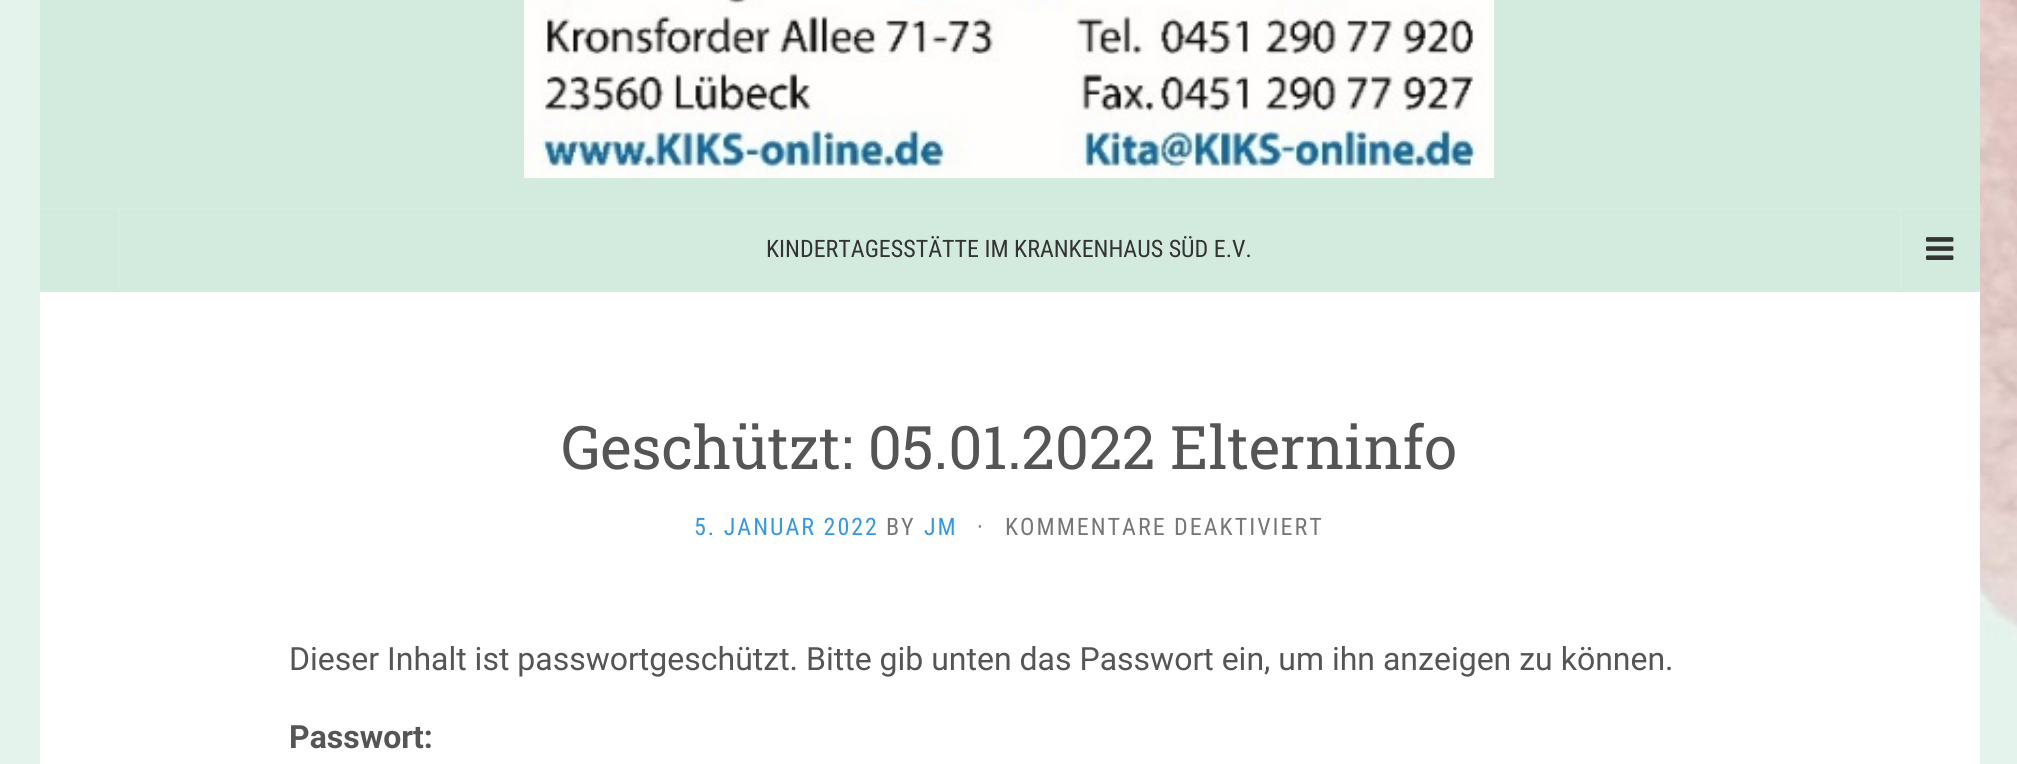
#include <cairo.h>
#include <math.h>
#include <stddef.h>

typedef struct { const char *family; double size; int italic, bold; unsigned color; } style_t;
static cairo_t *ctx;

static void ink(unsigned color) {
    cairo_set_source_rgb(ctx, (color >> 16) / 255.0, (color >> 8 & 255) / 255.0, (color & 255) / 255.0);
}

static void write(double x, double y, const char *s, const style_t *st) {
    cairo_select_font_face(ctx, st->family, st->italic ? CAIRO_FONT_SLANT_ITALIC : CAIRO_FONT_SLANT_NORMAL,
        st->bold ? CAIRO_FONT_WEIGHT_BOLD : CAIRO_FONT_WEIGHT_NORMAL);
    cairo_set_font_size(ctx, st->size);
    ink(st->color);
    cairo_move_to(ctx, x, y);
    cairo_show_text(ctx, s);
}

static void write_spaced(double x, double y, const char *s, double letter, double word) {
    cairo_move_to(ctx, x, y);
    while (*s) {
        char ch[5] = {0};
        int n = 0;
        do ch[n++] = *s++; while ((*s & 0xC0) == 0x80);
        cairo_show_text(ctx, ch);
        cairo_rel_move_to(ctx, letter + word * (*ch == ' '), 0);
    }
}

static void block(double x, double y, double w, double h, unsigned color) {
    ink(color);
    cairo_rectangle(ctx, x, y, w, h);
    cairo_fill(ctx);
}

static void paste(const char *path, double x, double y, double w, double h) {
    cairo_surface_t *image = cairo_image_surface_create_from_png(path);
    cairo_save(ctx);
    cairo_set_source_surface(ctx, image, x, y);
    cairo_rectangle(ctx, x, y, w, h);
    cairo_fill(ctx);
    cairo_restore(ctx);
    cairo_surface_destroy(image);
}

static const style_t s1 = {"Roboto Condensed", 24, 0, 0, 0x333333};
static const style_t s2 = {"Roboto Slab", 60, 0, 0, 0x555555};
static const style_t s3 = {"Roboto", 32, 0, 0, 0x555555};
static const style_t s4 = {"Roboto", 32, 0, 1, 0x555555};

int main(void) {
    cairo_surface_t *surface = cairo_image_surface_create(CAIRO_FORMAT_RGB24, 2017, 764);
    ctx = cairo_create(surface);
    cairo_font_options_t *options = cairo_font_options_create();
    cairo_font_options_set_hint_metrics(options, CAIRO_HINT_METRICS_OFF);
    cairo_font_options_set_hint_style(options, CAIRO_HINT_STYLE_NONE);
    cairo_set_font_options(ctx, options);
    cairo_set_miter_limit(ctx, 4);
    ink(0xffffff);
    cairo_paint(ctx);
    paste("pic1.png", 0, 0, 2017, 764);
    block(40, 0, 1940, 290, 0xd3eade);
    block(118, 210, 2, 80, 0xd7ece1);
    block(40, 290, 1940, 2, 0xd7ece1);
    block(40, 208, 1940, 2, 0xd7ece1);
    paste("pic2.png", 524, 0, 970, 178);
    write(766, 257, "KINDERTAGESSTÄTTE IM KRANKENHAUS SÜD E.V.", &s1);
    block(1900, 210, 2, 80, 0xd7ece1);
    paste("pic3.png", 1926, 237, 28, 23);
    block(40, 292, 1940, 472, 0xffffff);
    write(561, 469, "Geschützt: 05.01.2022 Elterninfo", &s2);
    cairo_select_font_face(ctx, "Roboto Condensed", CAIRO_FONT_SLANT_NORMAL, CAIRO_FONT_WEIGHT_NORMAL);
    cairo_set_font_size(ctx, 24);
    ink(0x3699dc);
    write_spaced(694, 535, "5. JANUAR 2022", 2, 0);
    ink(0x777777);
    write_spaced(886, 535, "BY", 2, 0);
    ink(0x3699dc);
    write_spaced(924, 535, "JM", 2, 0);
    ink(0x777777);
    write_spaced(977, 535, "·", 2, 0);
    write_spaced(1005, 535, "KOMMENTARE DEAKTIVIERT", 2, 0);
    write(289, 670, "Dieser Inhalt ist passwortgeschützt. Bitte gib unten das Passwort ein, um ihn anzeigen zu können.", &s3);
    write(289, 748, "Passwort:", &s4);
    cairo_surface_write_to_png(surface, "screenshot.png");
    cairo_font_options_destroy(options);
    cairo_destroy(ctx);
    cairo_surface_destroy(surface);
    return 0;
}
